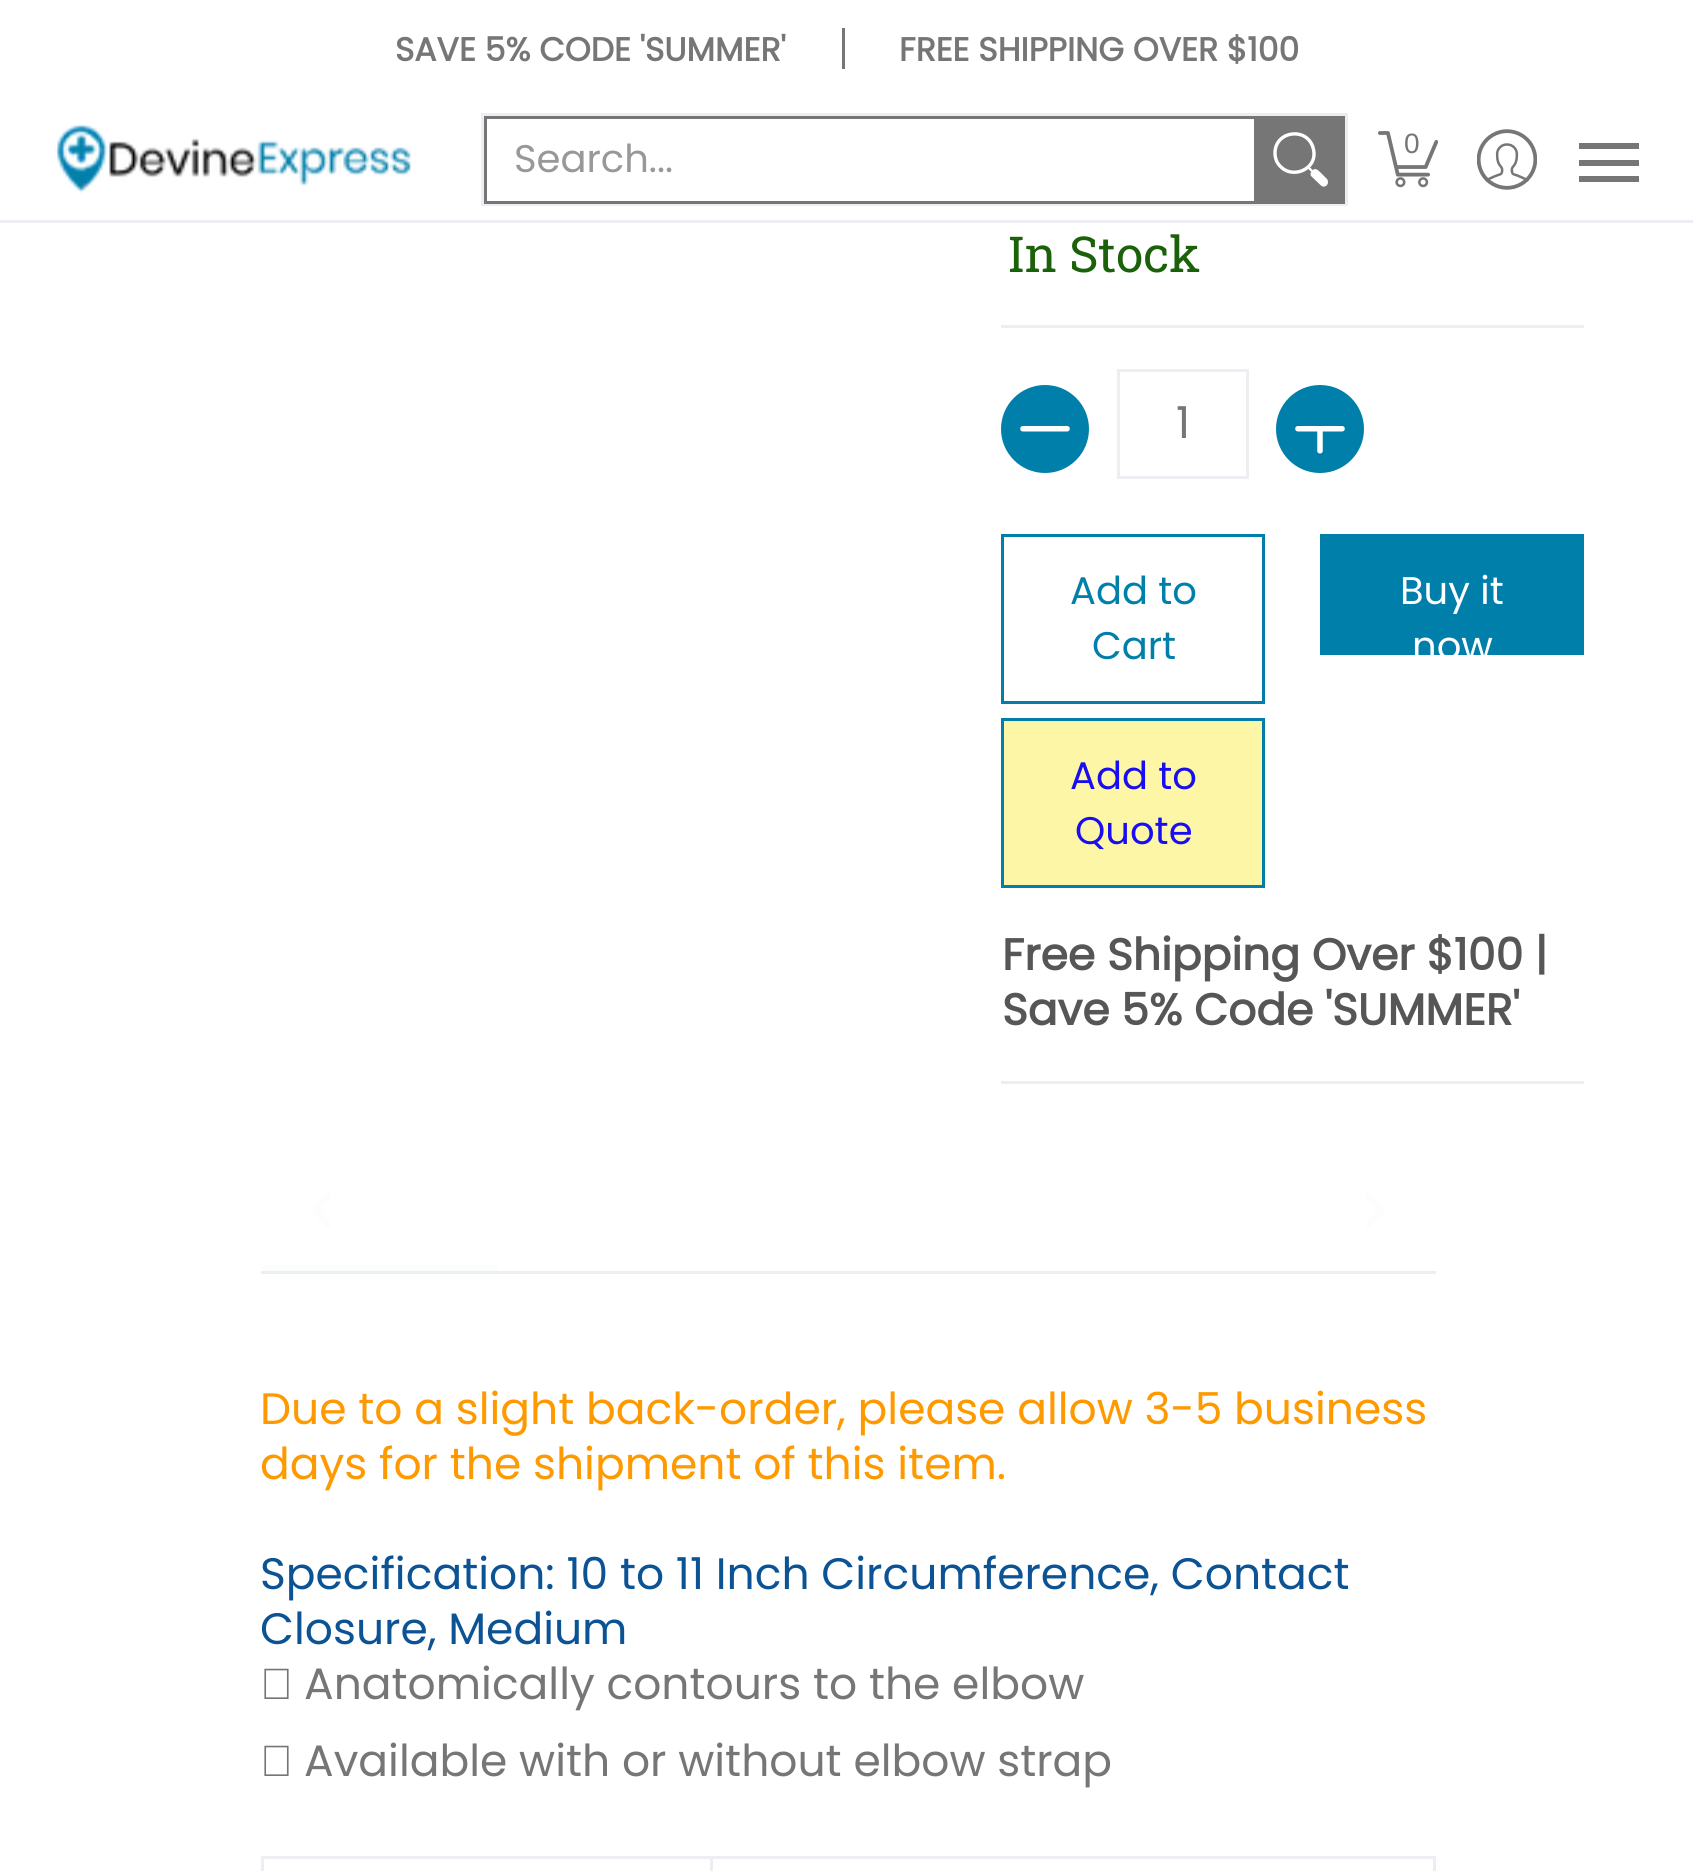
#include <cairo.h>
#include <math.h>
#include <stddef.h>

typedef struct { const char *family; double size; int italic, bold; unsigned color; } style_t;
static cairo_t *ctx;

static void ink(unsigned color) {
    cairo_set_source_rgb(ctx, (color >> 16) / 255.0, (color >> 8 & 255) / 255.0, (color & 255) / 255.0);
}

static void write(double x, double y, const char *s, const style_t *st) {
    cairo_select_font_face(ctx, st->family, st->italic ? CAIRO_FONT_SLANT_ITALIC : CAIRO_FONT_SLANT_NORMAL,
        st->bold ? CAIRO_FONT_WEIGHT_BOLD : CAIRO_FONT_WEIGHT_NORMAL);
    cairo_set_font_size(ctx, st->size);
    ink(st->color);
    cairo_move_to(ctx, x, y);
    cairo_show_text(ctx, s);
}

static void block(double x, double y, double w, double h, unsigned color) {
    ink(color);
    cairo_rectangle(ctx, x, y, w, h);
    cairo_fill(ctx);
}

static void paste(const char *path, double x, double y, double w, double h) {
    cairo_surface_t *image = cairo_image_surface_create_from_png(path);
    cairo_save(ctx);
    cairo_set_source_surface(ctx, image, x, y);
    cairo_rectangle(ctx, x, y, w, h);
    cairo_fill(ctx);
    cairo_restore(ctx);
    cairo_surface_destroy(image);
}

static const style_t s1 = {"Poppins", 33, 0, 1, 0x767676};
static const style_t s2 = {"Poppins", 38.5, 0, 0, 0x989898};
static const style_t s3 = {"Liberation Sans", 28, 0, 0, 0x767676};
static const style_t s4 = {"Roboto Slab", 49.5, 0, 0, 0x1b6109};
static const style_t s5 = {"Poppins", 44, 0, 0, 0x767676};
static const style_t s6 = {"Poppins", 38.5, 0, 0, 0x007faa};
static const style_t s7 = {"Poppins", 38.5, 0, 0, 0x190ef1};
static const style_t s8 = {"Poppins", 38.5, 0, 0, 0xffffff};
static const style_t s9 = {"Poppins", 44, 0, 1, 0x565656};
static const style_t s10 = {"Poppins", 44, 0, 0, 0xff9900};
static const style_t s11 = {"Poppins", 44, 0, 0, 0x0b5394};
static const style_t s12 = {"Liberation Sans", 44, 0, 0, 0x767676};

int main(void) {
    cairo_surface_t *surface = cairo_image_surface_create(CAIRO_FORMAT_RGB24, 1693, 1871);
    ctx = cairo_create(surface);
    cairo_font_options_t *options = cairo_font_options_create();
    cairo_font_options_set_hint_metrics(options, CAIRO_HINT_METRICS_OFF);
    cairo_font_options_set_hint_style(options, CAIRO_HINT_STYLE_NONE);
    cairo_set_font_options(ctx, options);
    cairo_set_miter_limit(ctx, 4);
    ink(0xffffff);
    cairo_paint(ctx);
    write(395, 61, "SAVE 5% CODE 'SUMMER'", &s1);
    block(842, 28, 3, 41, 0x767676);
    write(899, 61, "FREE SHIPPING OVER $100", &s1);
    block(0, 220, 1693, 3, 0xedeef4);
    paste("pic1.png", 55, 124, 356, 69);
    cairo_rectangle(ctx, 482.5, 114.5, 864, 90);
    cairo_set_line_width(ctx, 3);
    cairo_stroke(ctx);
    cairo_rectangle(ctx, 485.5, 117.5, 770, 85);
    ink(0x767676);
    cairo_stroke(ctx);
    write(514, 172, "Search...", &s2);
    block(1257, 116, 88, 88, 0x767676);
    cairo_new_path(ctx);
    cairo_move_to(ctx, 1275, 153);
    cairo_curve_to(ctx, 1275, 158.5, 1277, 163.5, 1281, 167);
    cairo_curve_to(ctx, 1292.5, 178.5, 1315, 170, 1314, 153);
    cairo_curve_to(ctx, 1312, 126, 1275, 129, 1275, 153);
    cairo_close_path(ctx);
    ink(0xffffff);
    cairo_set_line_width(ctx, 3.4);
    cairo_set_line_cap(ctx, CAIRO_LINE_CAP_ROUND);
    cairo_set_line_join(ctx, CAIRO_LINE_JOIN_ROUND);
    cairo_stroke(ctx);
    cairo_new_path(ctx);
    cairo_move_to(ctx, 1307.5, 166.5);
    cairo_line_to(ctx, 1313, 172);
    cairo_set_line_width(ctx, 2.3);
    cairo_set_line_cap(ctx, CAIRO_LINE_CAP_BUTT);
    cairo_stroke(ctx);
    cairo_new_path(ctx);
    cairo_move_to(ctx, 1327, 179);
    cairo_curve_to(ctx, 1330, 183, 1326, 188.5, 1321.5, 186);
    cairo_line_to(ctx, 1311.5, 176.5);
    cairo_curve_to(ctx, 1310.5, 175.5, 1310, 173.5, 1311, 172.5);
    cairo_curve_to(ctx, 1314.5, 166.5, 1317.5, 169.5, 1321, 173);
    cairo_close_path(ctx);
    cairo_fill(ctx);
    paste("pic2.png", 1378, 131, 60, 57);
    write(1404, 153, "0", &s3);
    paste("pic3.png", 1477, 129, 60, 61);
    block(1579, 143, 60, 6, 0x767676);
    block(1579, 176, 60, 6, 0x767676);
    block(1579, 160, 60, 6, 0x767676);
    block(1001, 325, 583, 3, 0xedeef4);
    write(1008, 272, "In Stock", &s4);
    ink(0x007faa);
    cairo_new_path(ctx);
    cairo_arc(ctx, 1045, 429, 44, 0, 2 * M_PI);
    cairo_fill(ctx);
    paste("pic4.png", 1020, 426, 50, 6);
    cairo_rectangle(ctx, 1118.5, 370.5, 129, 107);
    ink(0xedeef4);
    cairo_set_line_width(ctx, 3);
    cairo_set_line_join(ctx, CAIRO_LINE_JOIN_MITER);
    cairo_stroke(ctx);
    write(1176, 438, "1", &s5);
    ink(0x007faa);
    cairo_new_path(ctx);
    cairo_arc(ctx, 1320, 429, 44, 0, 2 * M_PI);
    cairo_fill(ctx);
    paste("pic5.png", 1295, 426, 50, 28);
    cairo_rectangle(ctx, 1002.5, 535.5, 261, 167);
    cairo_stroke(ctx);
    write(1070, 604, "Add to", &s6);
    write(1092, 659, "Cart", &s6);
    ink(0xfdf6a7);
    cairo_rectangle(ctx, 1002.5, 719.5, 261, 167);
    cairo_fill_preserve(ctx);
    ink(0x007faa);
    cairo_stroke(ctx);
    write(1070, 789, "Add to", &s7);
    write(1075, 844, "Quote", &s7);
    block(1320, 534, 264, 121, 0x007faa);
    write(1400, 604, "Buy it", &s8);
    write(1412, 659, "now", &s8);
    block(1001, 1081, 583, 3, 0xedeef4);
    write(1002, 970, "Free Shipping Over $100 |", &s9);
    write(1002, 1025, "Save 5% Code 'SUMMER'", &s9);
    cairo_new_path(ctx);
    cairo_move_to(ctx, 328, 1195.5);
    cairo_line_to(ctx, 315.5, 1210);
    cairo_line_to(ctx, 328, 1224.5);
    ink(0xfcfefe);
    cairo_set_line_width(ctx, 7.3);
    cairo_set_line_cap(ctx, CAIRO_LINE_CAP_ROUND);
    cairo_set_line_join(ctx, CAIRO_LINE_JOIN_ROUND);
    cairo_stroke(ctx);
    cairo_new_path(ctx);
    cairo_move_to(ctx, 1368.5, 1224.5);
    cairo_line_to(ctx, 1381.5, 1210);
    cairo_line_to(ctx, 1368.5, 1195.5);
    cairo_stroke(ctx);
    block(261, 1265, 237, 6, 0xfcfefe);
    block(261, 1271, 1175, 3, 0xedeef4);
    write(260, 1424, "Due to a slight back-order, please allow 3-5 business", &s10);
    write(260, 1479, "days for the shipment of this item.", &s10);
    write(260, 1589, "Specification: 10 to 11 Inch Circumference, Contact", &s11);
    write(260, 1644, "Closure, Medium", &s11);
    write(260, 1699, "‑", &s12);
    write(304, 1699, "Anatomically contours to the elbow", &s5);
    write(260, 1776, "‑", &s12);
    write(304, 1776, "Available with or without elbow strap", &s5);
    block(710, 1856, 726, 3, 0xedeef4);
    block(710, 1856, 3, 15, 0xedeef4);
    block(261, 1856, 451, 3, 0xedeef4);
    block(261, 1856, 3, 15, 0xedeef4);
    block(1433, 1856, 3, 15, 0xedeef4);
    cairo_surface_write_to_png(surface, "screenshot.png");
    cairo_font_options_destroy(options);
    cairo_destroy(ctx);
    cairo_surface_destroy(surface);
    return 0;
}
